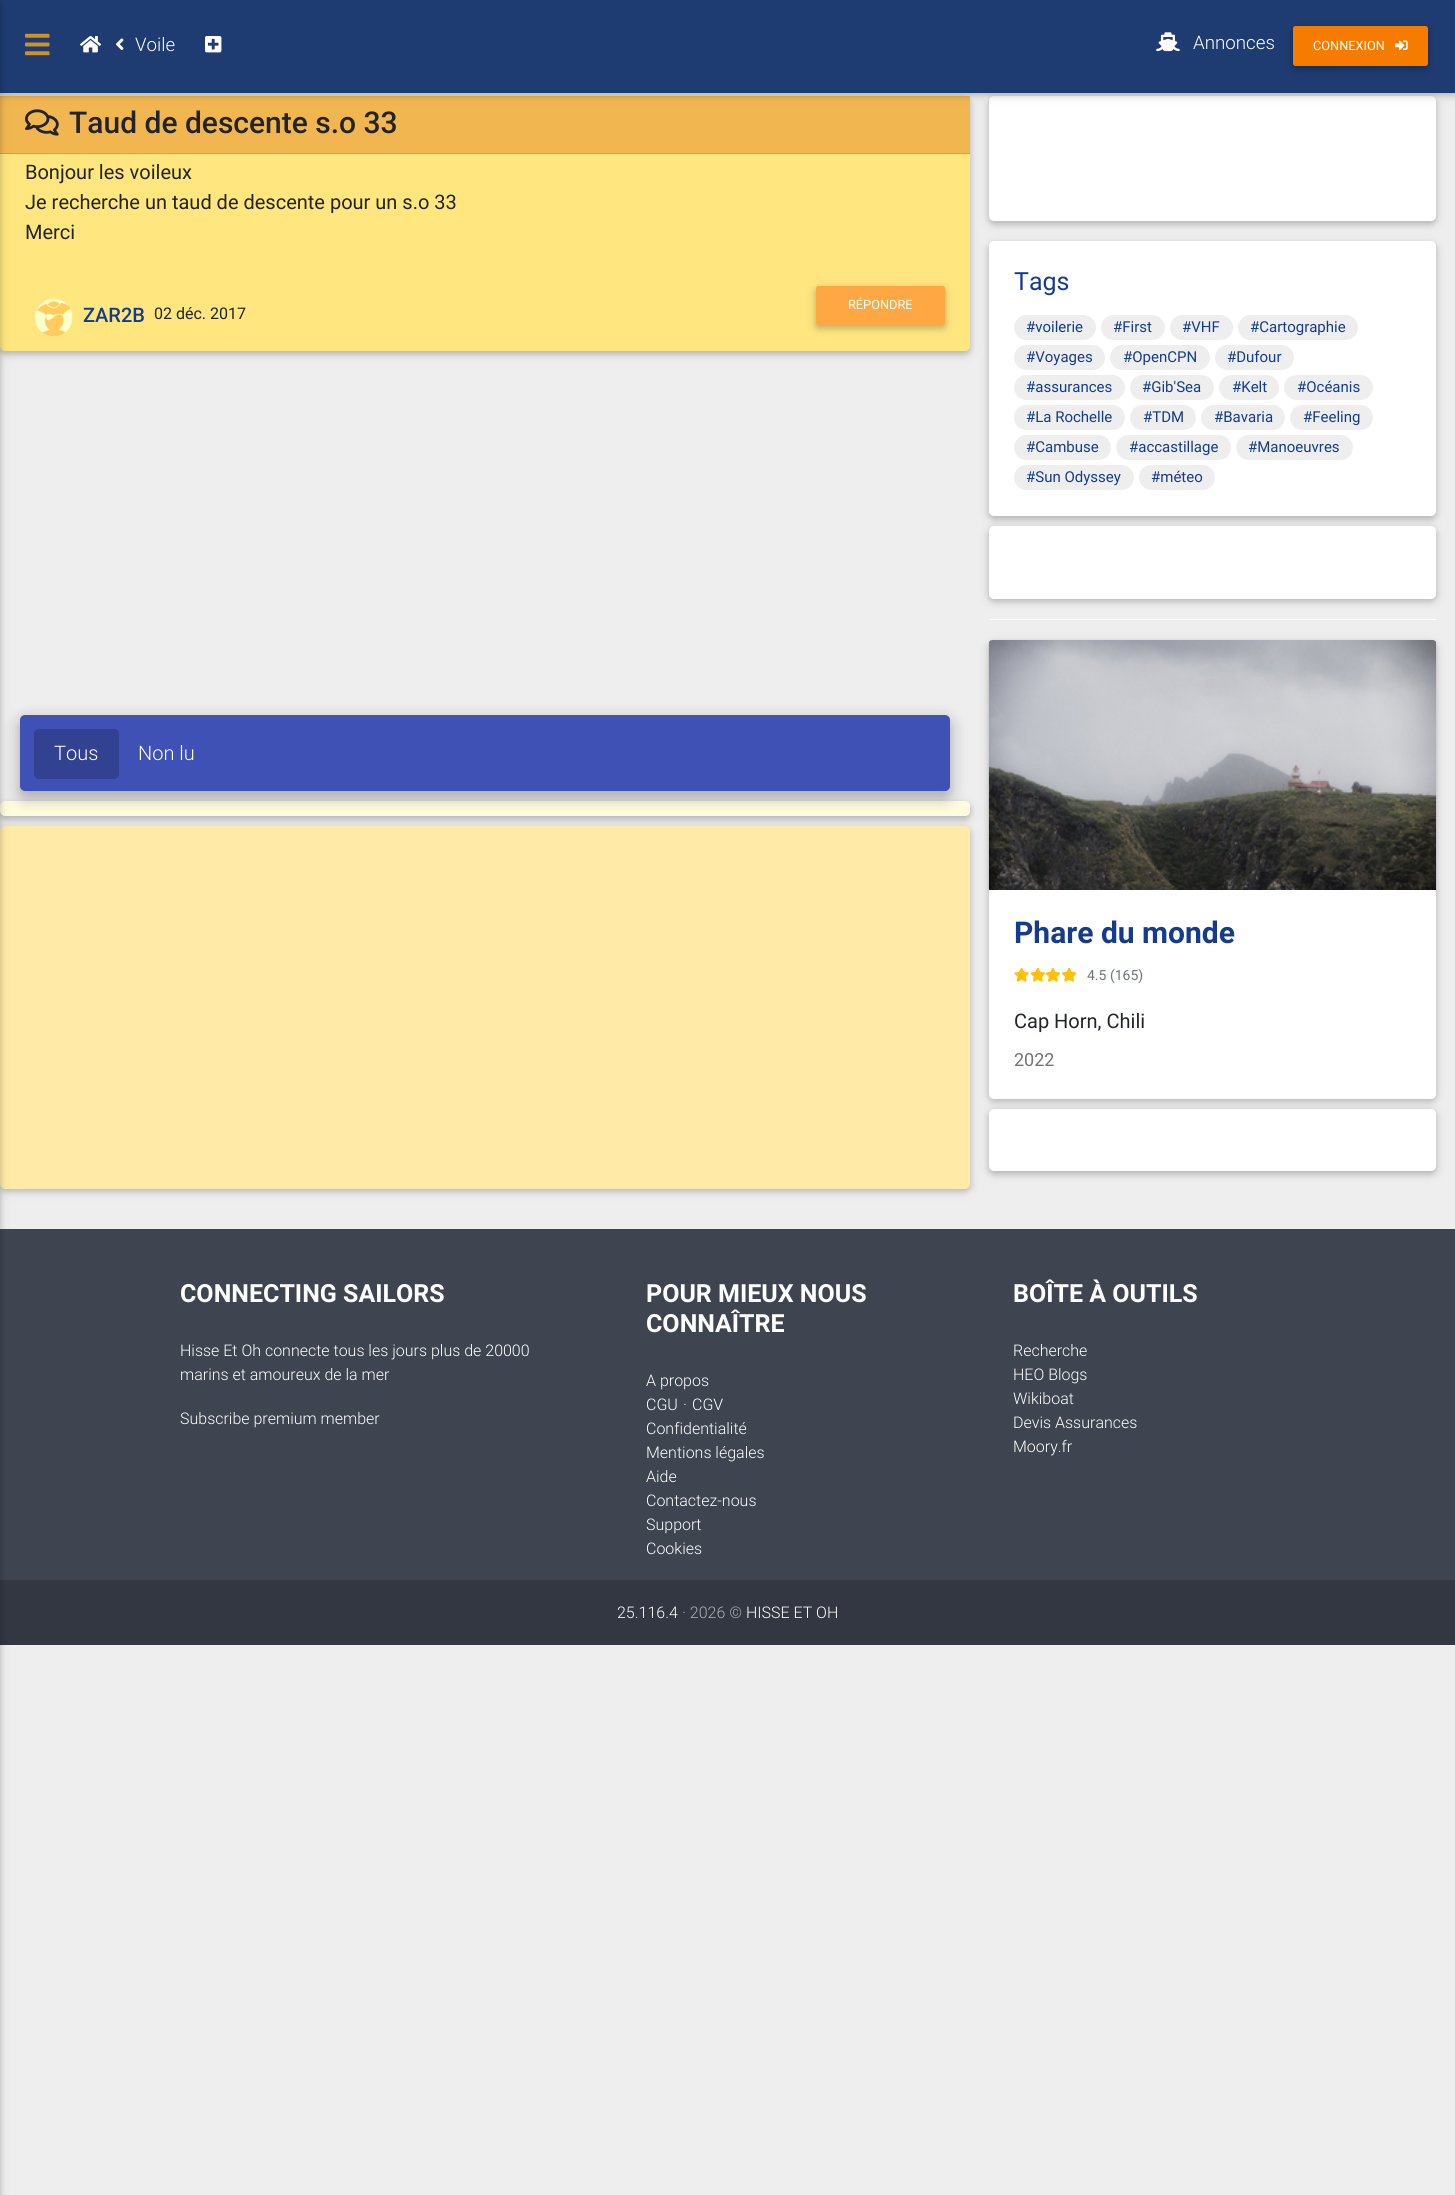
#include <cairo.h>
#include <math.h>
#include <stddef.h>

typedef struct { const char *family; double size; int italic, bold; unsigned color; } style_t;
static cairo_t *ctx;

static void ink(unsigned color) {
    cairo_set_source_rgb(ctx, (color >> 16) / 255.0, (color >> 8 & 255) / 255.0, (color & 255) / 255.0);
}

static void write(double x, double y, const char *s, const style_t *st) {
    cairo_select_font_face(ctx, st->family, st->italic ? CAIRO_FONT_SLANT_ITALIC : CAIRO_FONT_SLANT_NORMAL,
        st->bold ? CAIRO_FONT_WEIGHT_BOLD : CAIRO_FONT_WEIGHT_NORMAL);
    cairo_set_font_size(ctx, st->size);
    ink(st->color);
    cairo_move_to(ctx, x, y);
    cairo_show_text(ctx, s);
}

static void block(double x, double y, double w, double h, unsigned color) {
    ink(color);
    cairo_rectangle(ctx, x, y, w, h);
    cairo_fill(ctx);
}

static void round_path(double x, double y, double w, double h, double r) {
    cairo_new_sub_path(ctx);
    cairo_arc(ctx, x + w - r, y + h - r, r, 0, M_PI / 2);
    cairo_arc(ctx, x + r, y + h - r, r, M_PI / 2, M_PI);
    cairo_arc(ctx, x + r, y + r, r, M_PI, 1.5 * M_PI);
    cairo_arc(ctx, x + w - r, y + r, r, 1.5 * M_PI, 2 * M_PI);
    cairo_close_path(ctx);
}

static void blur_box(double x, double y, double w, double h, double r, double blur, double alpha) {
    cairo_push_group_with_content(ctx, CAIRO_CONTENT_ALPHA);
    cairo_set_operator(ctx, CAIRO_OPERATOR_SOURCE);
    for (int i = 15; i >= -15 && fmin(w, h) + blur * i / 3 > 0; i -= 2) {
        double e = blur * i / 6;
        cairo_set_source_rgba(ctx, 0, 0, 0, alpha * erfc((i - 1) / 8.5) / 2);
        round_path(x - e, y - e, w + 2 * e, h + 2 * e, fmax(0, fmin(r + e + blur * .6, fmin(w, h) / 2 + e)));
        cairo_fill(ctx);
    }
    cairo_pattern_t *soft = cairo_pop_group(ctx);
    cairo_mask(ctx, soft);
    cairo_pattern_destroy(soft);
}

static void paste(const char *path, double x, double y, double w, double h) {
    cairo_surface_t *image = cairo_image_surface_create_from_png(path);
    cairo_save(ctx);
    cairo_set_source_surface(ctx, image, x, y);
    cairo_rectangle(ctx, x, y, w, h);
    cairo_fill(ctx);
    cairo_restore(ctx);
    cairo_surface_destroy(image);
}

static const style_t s1 = {"Roboto Light", 18.75, 0, 0, 0xffffff};
static const style_t s2 = {"Roboto", 12.75, 0, 0, 0xffffff};
static const style_t s3 = {"Roboto Medium", 30, 0, 0, 0x212529};
static const style_t s4 = {"Roboto", 20, 0, 0, 0x212529};
static const style_t s5 = {"Roboto Medium", 20, 0, 0, 0x153c8c};
static const style_t s6 = {"Roboto", 16, 0, 0, 0x212529};
static const style_t s7 = {"Roboto Light", 20, 0, 0, 0xffffff};
static const style_t s8 = {"Roboto", 25, 0, 0, 0x153c8c};
static const style_t s9 = {"Roboto", 15, 0, 0, 0x153c8c};
static const style_t s10 = {"Roboto", 30, 0, 1, 0x153c8c};
static const style_t s11 = {"Roboto", 14, 0, 0, 0x6c757d};
static const style_t s12 = {"Roboto", 18, 0, 0, 0x747373};
static const style_t s13 = {"Roboto", 25, 0, 1, 0xffffff};
static const style_t s14 = {"Roboto Light", 16, 0, 0, 0xffffff};
static const style_t s15 = {"Roboto Light", 16, 0, 0, 0xadafb3};

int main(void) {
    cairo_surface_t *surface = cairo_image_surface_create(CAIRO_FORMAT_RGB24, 1455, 2195);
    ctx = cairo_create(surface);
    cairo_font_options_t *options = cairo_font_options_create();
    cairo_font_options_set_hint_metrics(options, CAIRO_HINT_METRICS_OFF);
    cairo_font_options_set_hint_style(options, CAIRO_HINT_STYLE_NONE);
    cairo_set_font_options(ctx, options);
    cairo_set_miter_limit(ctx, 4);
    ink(0xeeeeee);
    cairo_paint(ctx);
    ink(0x000000);
    blur_box(0, 99, 970, 255, 5, 6, 0.12);
    blur_box(0, 99, 970, 255, 5, 3, 0.16);
    ink(0xffe67f);
    round_path(0, 96, 970, 255, 5);
    cairo_fill(ctx);
    block(0, 96, 970, 57, 0xf1b650);
    paste("pic7.png", 25, 109, 34, 27);
    ink(0x000000);
    blur_box(989, 99, 447, 125, 5, 6, 0.12);
    blur_box(989, 99, 447, 125, 5, 3, 0.16);
    ink(0xffffff);
    round_path(989, 96, 447, 125, 5);
    cairo_fill(ctx);
    ink(0x000000);
    blur_box(0, 3, 1455, 92, 0, 6, 0.12);
    blur_box(0, 3, 1455, 92, 0, 3, 0.16);
    block(0, 0, 1455, 93, 0x1e3c72);
    block(0, 153, 970, 1, 0xd39f46);
    ink(0x000000);
    blur_box(0, 804, 970, 15, 5, 6, 0.12);
    blur_box(0, 804, 970, 15, 5, 3, 0.16);
    ink(0xfffcdd);
    round_path(0, 801, 970, 15, 5);
    cairo_fill(ctx);
    ink(0x000000);
    blur_box(0, 829, 970, 362, 5, 6, 0.12);
    blur_box(0, 829, 970, 362, 5, 3, 0.16);
    ink(0xffeaa8);
    round_path(0, 826, 970, 363, 5);
    cairo_fill(ctx);
    block(0, 1229, 1455, 351, 0x3e4551);
    block(0, 1580, 1455, 65, 0x323741);
    ink(0x000000);
    blur_box(-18, 3, 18, 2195, 0, 6, 0.12);
    blur_box(-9, 3, 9, 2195, 0, 3, 0.16);
    paste("pic1.png", 25, 33, 25, 23);
    paste("pic2.png", 80, 36, 21, 17);
    paste("pic3.png", 116, 38, 8, 12);
    write(135, 51, "Voile", &s1);
    paste("pic4.png", 205, 36, 17, 17);
    paste("pic5.png", 1156, 32, 24, 20);
    write(1193, 49, "Annonces", &s1);
    ink(0x000000);
    blur_box(1293, 29, 135, 40, 2.5, 6, 0.12);
    blur_box(1293, 29, 135, 40, 2.5, 3, 0.16);
    ink(0xf57c00);
    round_path(1293, 26, 135, 40, 2.5);
    cairo_fill(ctx);
    write(1313, 50, "CONNEXION", &s2);
    paste("pic6.png", 1395, 40, 13, 11);
    write(69, 133, "Taud de descente s.o 33", &s3);
    write(25, 179, "Bonjour les voileux", &s4);
    write(25, 209, "Je recherche un taud de descente pour un s.o 33", &s4);
    write(25, 239, "Merci", &s4);
    ink(0x000000);
    blur_box(816, 289, 129, 39, 2.5, 6, 0.12);
    blur_box(816, 289, 129, 39, 2.5, 3, 0.16);
    ink(0xffa742);
    round_path(816, 286, 129, 39, 2.5);
    cairo_fill(ctx);
    write(848, 309, "RÉPONDRE", &s2);
    paste("pic8.png", 35, 298, 38, 38);
    write(83, 322, "ZAR2B", &s5);
    write(154, 319, "02 déc. 2017", &s6);
    ink(0x000000);
    blur_box(20, 720, 930, 76, 5, 9.5, 0.15);
    blur_box(20, 721, 930, 77, 5, 7, 0.18);
    ink(0x3f51b5);
    round_path(20, 715, 930, 76, 5);
    cairo_fill(ctx);
    ink(0x324191);
    round_path(34, 729, 85, 50, 5);
    cairo_fill(ctx);
    write(54, 760, "Tous", &s7);
    write(138, 760, "Non lu", &s7);
    ink(0x000000);
    blur_box(989, 244, 447, 275, 5, 6, 0.12);
    blur_box(989, 244, 447, 275, 5, 3, 0.16);
    ink(0xffffff);
    round_path(989, 241, 447, 275, 5);
    cairo_fill(ctx);
    write(1014, 290, "Tags", &s8);
    ink(0xeeeeee);
    round_path(1014, 315, 82, 25, 12.5);
    cairo_fill(ctx);
    write(1026, 332, "#voilerie", &s9);
    ink(0xeeeeee);
    round_path(1101, 315, 64, 25, 12.5);
    cairo_fill(ctx);
    write(1113, 332, "#First", &s9);
    ink(0xeeeeee);
    round_path(1170, 315, 63, 25, 12.5);
    cairo_fill(ctx);
    write(1182, 332, "#VHF", &s9);
    ink(0xeeeeee);
    round_path(1238, 315, 120, 25, 12.5);
    cairo_fill(ctx);
    write(1250, 332, "#Cartographie", &s9);
    ink(0xeeeeee);
    round_path(1014, 345, 91, 25, 12.5);
    cairo_fill(ctx);
    write(1026, 362, "#Voyages", &s9);
    ink(0xeeeeee);
    round_path(1110, 345, 100, 25, 12.5);
    cairo_fill(ctx);
    write(1123, 362, "#OpenCPN", &s9);
    ink(0xeeeeee);
    round_path(1215, 345, 79, 25, 12.5);
    cairo_fill(ctx);
    write(1227, 362, "#Dufour", &s9);
    ink(0xeeeeee);
    round_path(1014, 375, 111, 25, 12.5);
    cairo_fill(ctx);
    write(1026, 392, "#assurances", &s9);
    ink(0xeeeeee);
    round_path(1130, 375, 84, 25, 12.5);
    cairo_fill(ctx);
    write(1142, 392, "#Gib'Sea", &s9);
    ink(0xeeeeee);
    round_path(1219, 375, 60, 25, 12.5);
    cairo_fill(ctx);
    write(1232, 392, "#Kelt", &s9);
    ink(0xeeeeee);
    round_path(1284, 375, 89, 25, 12.5);
    cairo_fill(ctx);
    write(1297, 392, "#Océanis", &s9);
    ink(0xeeeeee);
    round_path(1014, 405, 111, 25, 12.5);
    cairo_fill(ctx);
    write(1026, 422, "#La Rochelle", &s9);
    ink(0xeeeeee);
    round_path(1130, 405, 66, 25, 12.5);
    cairo_fill(ctx);
    write(1143, 422, "#TDM", &s9);
    ink(0xeeeeee);
    round_path(1201, 405, 84, 25, 12.5);
    cairo_fill(ctx);
    write(1214, 422, "#Bavaria", &s9);
    ink(0xeeeeee);
    round_path(1290, 405, 83, 25, 12.5);
    cairo_fill(ctx);
    write(1303, 422, "#Feeling", &s9);
    ink(0xeeeeee);
    round_path(1014, 435, 97, 25, 12.5);
    cairo_fill(ctx);
    write(1026, 452, "#Cambuse", &s9);
    ink(0xeeeeee);
    round_path(1116, 435, 115, 25, 12.5);
    cairo_fill(ctx);
    write(1129, 452, "#accastillage", &s9);
    ink(0xeeeeee);
    round_path(1236, 435, 117, 25, 12.5);
    cairo_fill(ctx);
    write(1248, 452, "#Manoeuvres", &s9);
    ink(0xeeeeee);
    round_path(1014, 465, 120, 25, 12.5);
    cairo_fill(ctx);
    write(1026, 482, "#Sun Odyssey", &s9);
    ink(0xeeeeee);
    round_path(1139, 465, 76, 25, 12.5);
    cairo_fill(ctx);
    write(1151, 482, "#méteo", &s9);
    ink(0x000000);
    blur_box(989, 529, 447, 72, 5, 6, 0.12);
    blur_box(989, 529, 447, 72, 5, 3, 0.16);
    ink(0xffffff);
    round_path(989, 526, 447, 73, 5);
    cairo_fill(ctx);
    round_path(989, 619, 447, 1, 0.5);
    cairo_fill(ctx);
    ink(0x000000);
    blur_box(989, 643, 447, 458, 5, 6, 0.12);
    blur_box(989, 643, 447, 458, 5, 3, 0.16);
    ink(0xffffff);
    round_path(989, 640, 447, 459, 5);
    cairo_fill(ctx);
    paste("pic9.png", 988, 640, 449, 250);
    write(1014, 943, "Phare du monde", &s10);
    paste("pic10.png", 1014, 967, 15, 15);
    paste("pic11.png", 1030, 967, 16, 15);
    paste("pic12.png", 1045, 967, 16, 15);
    paste("pic13.png", 1061, 967, 16, 15);
    write(1087, 980, "4.5 (165)", &s11);
    write(1014, 1028, "Cap Horn, Chili", &s4);
    write(1014, 1066, "2022", &s12);
    ink(0x000000);
    blur_box(989, 1111, 447, 63, 5, 6, 0.12);
    blur_box(989, 1111, 447, 63, 5, 3, 0.16);
    ink(0xffffff);
    round_path(989, 1109, 447, 62, 5);
    cairo_fill(ctx);
    write(180, 1302, "CONNECTING SAILORS", &s13);
    write(180, 1356, "Hisse Et Oh connecte tous les jours plus de 20000", &s14);
    write(180, 1380, "marins et amoureux de la mer", &s14);
    write(180, 1424, "Subscribe premium member", &s14);
    write(646, 1302, "POUR MIEUX NOUS", &s13);
    write(646, 1332, "CONNAÎTRE", &s13);
    write(646, 1386, "A propos", &s14);
    write(646, 1410, "CGU", &s14);
    write(683, 1410, "·", &s14);
    write(692, 1410, "CGV", &s14);
    write(646, 1434, "Confidentialité", &s14);
    write(646, 1458, "Mentions légales", &s14);
    write(646, 1482, "Aide", &s14);
    write(646, 1506, "Contactez-nous", &s14);
    write(646, 1530, "Support", &s14);
    write(646, 1554, "Cookies", &s14);
    write(1013, 1302, "BOÎTE À OUTILS", &s13);
    write(1013, 1356, "Recherche", &s14);
    write(1013, 1380, "HEO Blogs", &s14);
    write(1013, 1404, "Wikiboat", &s14);
    write(1013, 1428, "Devis Assurances", &s14);
    write(1013, 1452, "Moory.fr", &s14);
    write(617, 1618, "25.116.4", &s14);
    write(682, 1618, "· 2026 ©", &s15);
    write(746, 1618, "HISSE ET OH", &s14);
    cairo_surface_write_to_png(surface, "screenshot.png");
    cairo_font_options_destroy(options);
    cairo_destroy(ctx);
    cairo_surface_destroy(surface);
    return 0;
}
